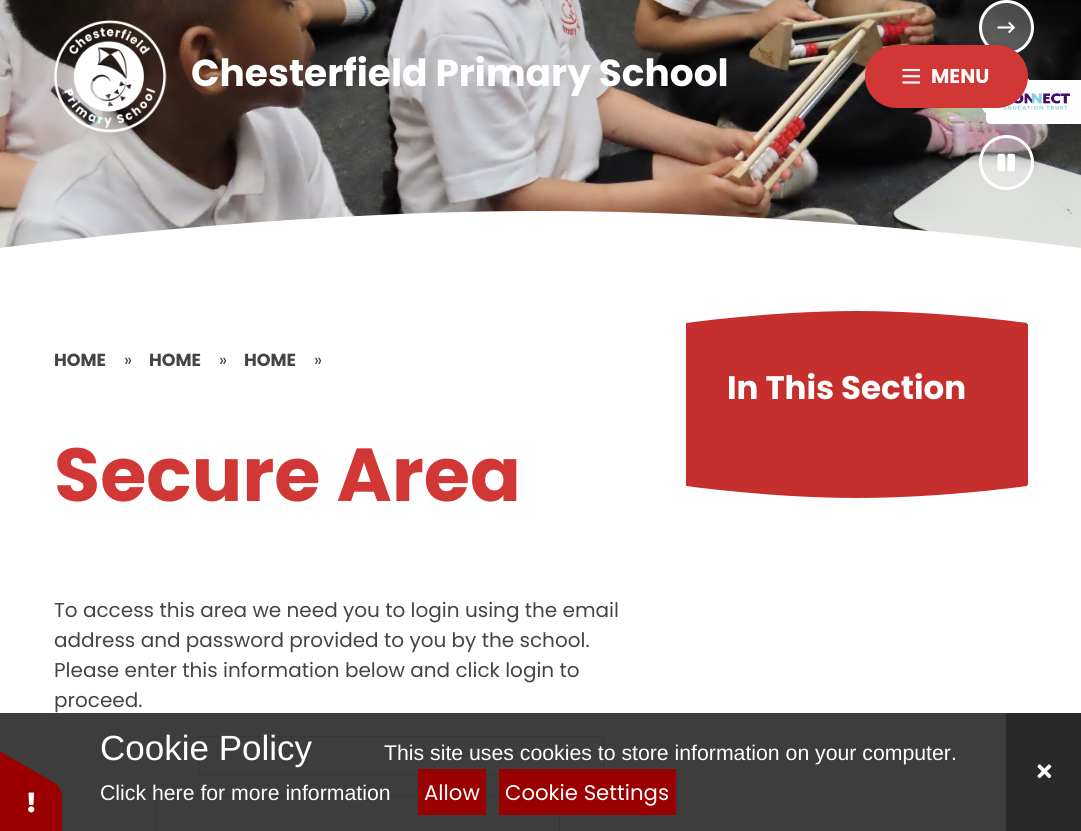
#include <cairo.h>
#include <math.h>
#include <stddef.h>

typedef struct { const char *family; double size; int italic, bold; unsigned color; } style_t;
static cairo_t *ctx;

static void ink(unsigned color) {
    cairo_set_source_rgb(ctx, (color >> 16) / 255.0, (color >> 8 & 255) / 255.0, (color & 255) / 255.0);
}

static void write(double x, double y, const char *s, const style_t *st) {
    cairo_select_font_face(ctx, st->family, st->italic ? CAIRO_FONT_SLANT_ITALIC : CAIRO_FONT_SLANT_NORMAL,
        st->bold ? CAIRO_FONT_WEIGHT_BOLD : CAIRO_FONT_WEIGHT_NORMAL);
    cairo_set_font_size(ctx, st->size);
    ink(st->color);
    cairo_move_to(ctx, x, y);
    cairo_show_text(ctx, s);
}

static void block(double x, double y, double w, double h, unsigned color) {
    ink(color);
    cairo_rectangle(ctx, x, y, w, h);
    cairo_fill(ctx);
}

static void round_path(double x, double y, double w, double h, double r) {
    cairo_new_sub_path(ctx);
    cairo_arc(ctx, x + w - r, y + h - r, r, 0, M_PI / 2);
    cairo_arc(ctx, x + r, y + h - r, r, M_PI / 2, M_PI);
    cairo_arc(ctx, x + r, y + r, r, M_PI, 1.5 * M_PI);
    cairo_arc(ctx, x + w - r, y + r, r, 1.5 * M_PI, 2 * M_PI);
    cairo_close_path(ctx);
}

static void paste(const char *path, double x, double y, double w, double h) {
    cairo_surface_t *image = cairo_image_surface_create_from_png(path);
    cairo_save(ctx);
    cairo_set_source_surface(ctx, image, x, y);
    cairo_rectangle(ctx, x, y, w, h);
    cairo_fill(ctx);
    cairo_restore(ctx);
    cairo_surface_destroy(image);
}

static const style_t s1 = {"Poppins", 37.5, 0, 1, 0xffffff};
static const style_t s2 = {"Poppins", 20, 0, 1, 0xffffff};
static const style_t s3 = {"Poppins", 17.5, 0, 1, 0x444444};
static const style_t s4 = {"Poppins", 17.5, 0, 0, 0x444444};
static const style_t s5 = {"Poppins", 75, 0, 1, 0xd13735};
static const style_t s6 = {"Poppins", 20, 0, 0, 0x444444};
static const style_t s7 = {"Poppins", 32.5, 0, 1, 0xffffff};
static const style_t s8 = {"Liberation Sans", 35, 0, 0, 0xffffff};
static const style_t s9 = {"Liberation Sans", 21.25, 0, 0, 0xffffff};
static const style_t s10 = {"Poppins", 21.25, 0, 0, 0xffffff};

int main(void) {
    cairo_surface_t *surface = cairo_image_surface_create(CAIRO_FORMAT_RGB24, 1081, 831);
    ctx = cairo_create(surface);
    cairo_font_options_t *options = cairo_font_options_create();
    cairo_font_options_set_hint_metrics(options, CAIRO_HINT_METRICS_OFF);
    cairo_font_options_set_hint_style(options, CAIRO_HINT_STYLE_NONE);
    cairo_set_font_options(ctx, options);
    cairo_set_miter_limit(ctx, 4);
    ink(0xffffff);
    cairo_paint(ctx);
    block(0, 713, 1006, 118, 0x3d3d3d);
    paste("pic1.png", 0, 0, 1081, 248);
    cairo_set_source_rgba(ctx, 1, 1, 1, 0.25);
    cairo_arc(ctx, 1006.5, 27.5, 26, 0, 2 * M_PI);
    cairo_fill_preserve(ctx);
    ink(0xffffff);
    cairo_set_line_width(ctx, 3);
    cairo_stroke(ctx);
    paste("pic2.png", 997, 21, 18, 13);
    cairo_arc(ctx, 1006.5, 95.5, 26, 0, 2 * M_PI);
    cairo_stroke(ctx);
    cairo_set_source_rgba(ctx, 1, 1, 1, 0.25);
    cairo_arc(ctx, 1006.5, 162.5, 26, 0, 2 * M_PI);
    cairo_fill_preserve(ctx);
    ink(0xffffff);
    cairo_stroke(ctx);
    paste("pic3.png", 997, 153, 18, 19);
    cairo_new_path(ctx);
    cairo_move_to(ctx, 991, 80);
    cairo_line_to(ctx, 1081, 80);
    cairo_line_to(ctx, 1081, 124);
    cairo_line_to(ctx, 991, 124);
    cairo_curve_to(ctx, 988, 124, 986, 122, 986, 119);
    cairo_line_to(ctx, 986, 85);
    cairo_curve_to(ctx, 986, 82, 988, 80, 991, 80);
    cairo_close_path(ctx);
    cairo_fill(ctx);
    paste("pic4.png", 1002, 93, 68, 17);
    cairo_save(ctx);
    cairo_rectangle(ctx, 0, 211, 1081, 48);
    cairo_clip(ctx);
    cairo_new_path(ctx);
    cairo_move_to(ctx, 541, 211);
    cairo_curve_to(ctx, 270, 211, 0, 248, 0, 248);
    cairo_line_to(ctx, 0, 261);
    cairo_line_to(ctx, 1081, 261);
    cairo_line_to(ctx, 1081, 248);
    cairo_curve_to(ctx, 1081, 248, 811, 211, 541, 211);
    cairo_close_path(ctx);
    cairo_fill(ctx);
    cairo_restore(ctx);
    paste("pic5.png", 53, 20, 114, 113);
    write(191, 86, "Chesterfield Primary School", &s1);
    ink(0xd13735);
    round_path(865, 45, 163, 63, 31.5);
    cairo_fill(ctx);
    paste("pic6.png", 902, 68, 18, 16);
    write(931, 83, "MENU", &s2);
    write(54, 366, "HOME", &s3);
    write(124, 366, "»", &s4);
    write(149, 366, "HOME", &s3);
    write(219, 366, "»", &s4);
    write(244, 366, "HOME", &s3);
    write(314, 366, "»", &s4);
    write(54, 501, "Secure Area", &s5);
    write(54, 617, "To access this area we need you to login using the email", &s6);
    write(54, 647, "address and password provided to you by the school.", &s6);
    write(54, 677, "Please enter this information below and click login to", &s6);
    write(54, 707, "proceed.", &s6);
    round_path(199.5, 736.5, 404, 38, 2);
    ink(0x363636);
    cairo_set_line_width(ctx, 1);
    cairo_stroke(ctx);
    round_path(155.5, 795.5, 404, 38, 2);
    cairo_stroke(ctx);
    ink(0xc52f2d);
    cairo_new_path(ctx);
    cairo_move_to(ctx, 857, 311);
    cairo_curve_to(ctx, 771, 311, 686, 323, 686, 323);
    cairo_line_to(ctx, 686, 327);
    cairo_line_to(ctx, 1027, 327);
    cairo_line_to(ctx, 1027, 323);
    cairo_curve_to(ctx, 1027, 323, 942, 311, 857, 311);
    cairo_close_path(ctx);
    cairo_fill(ctx);
    cairo_new_path(ctx);
    cairo_move_to(ctx, 857, 498);
    cairo_curve_to(ctx, 771, 498, 686, 486, 686, 486);
    cairo_line_to(ctx, 686, 482);
    cairo_line_to(ctx, 1027, 482);
    cairo_line_to(ctx, 1027, 486);
    cairo_curve_to(ctx, 1027, 486, 942, 498, 857, 498);
    cairo_close_path(ctx);
    cairo_fill(ctx);
    block(686, 324, 342, 161, 0xc52f2d);
    write(727, 399, "In This Section", &s7);
    ink(0x9a0000);
    cairo_new_path(ctx);
    cairo_move_to(ctx, 62, 797);
    cairo_line_to(ctx, 62, 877);
    cairo_curve_to(ctx, 62, 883, 60, 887, 57, 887);
    cairo_line_to(ctx, -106, 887);
    cairo_curve_to(ctx, -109, 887, -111, 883, -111, 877);
    cairo_line_to(ctx, -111, 797);
    cairo_curve_to(ctx, -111, 792, -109, 787, -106, 787);
    cairo_line_to(ctx, 57, 787);
    cairo_curve_to(ctx, 60, 787, 62, 792, 62, 797);
    cairo_close_path(ctx);
    cairo_fill(ctx);
    cairo_new_path(ctx);
    cairo_move_to(ctx, -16, 742);
    cairo_line_to(ctx, 53, 782);
    cairo_curve_to(ctx, 58, 785, 61, 789, 60, 792);
    cairo_line_to(ctx, -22, 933);
    cairo_curve_to(ctx, -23, 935, -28, 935, -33, 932);
    cairo_line_to(ctx, -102, 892);
    cairo_curve_to(ctx, -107, 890, -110, 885, -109, 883);
    cairo_line_to(ctx, -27, 742);
    cairo_curve_to(ctx, -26, 739, -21, 740, -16, 742);
    cairo_close_path(ctx);
    cairo_fill(ctx);
    paste("pic7.png", 28, 792, 7, 21);
    write(100, 760, "Cookie Policy", &s8);
    write(384, 760, "This site uses cookies to store information on your computer.", &s9);
    write(100, 800, "Click here for more information", &s9);
    block(418, 769, 68, 46, 0x9a0000);
    write(424, 800, "Allow", &s10);
    block(499, 769, 177, 46, 0x9a0000);
    write(505, 800, "Cookie Settings", &s10);
    block(1006, 713, 75, 118, 0x292929);
    paste("pic8.png", 1037, 764, 15, 15);
    cairo_surface_write_to_png(surface, "screenshot.png");
    cairo_font_options_destroy(options);
    cairo_destroy(ctx);
    cairo_surface_destroy(surface);
    return 0;
}
